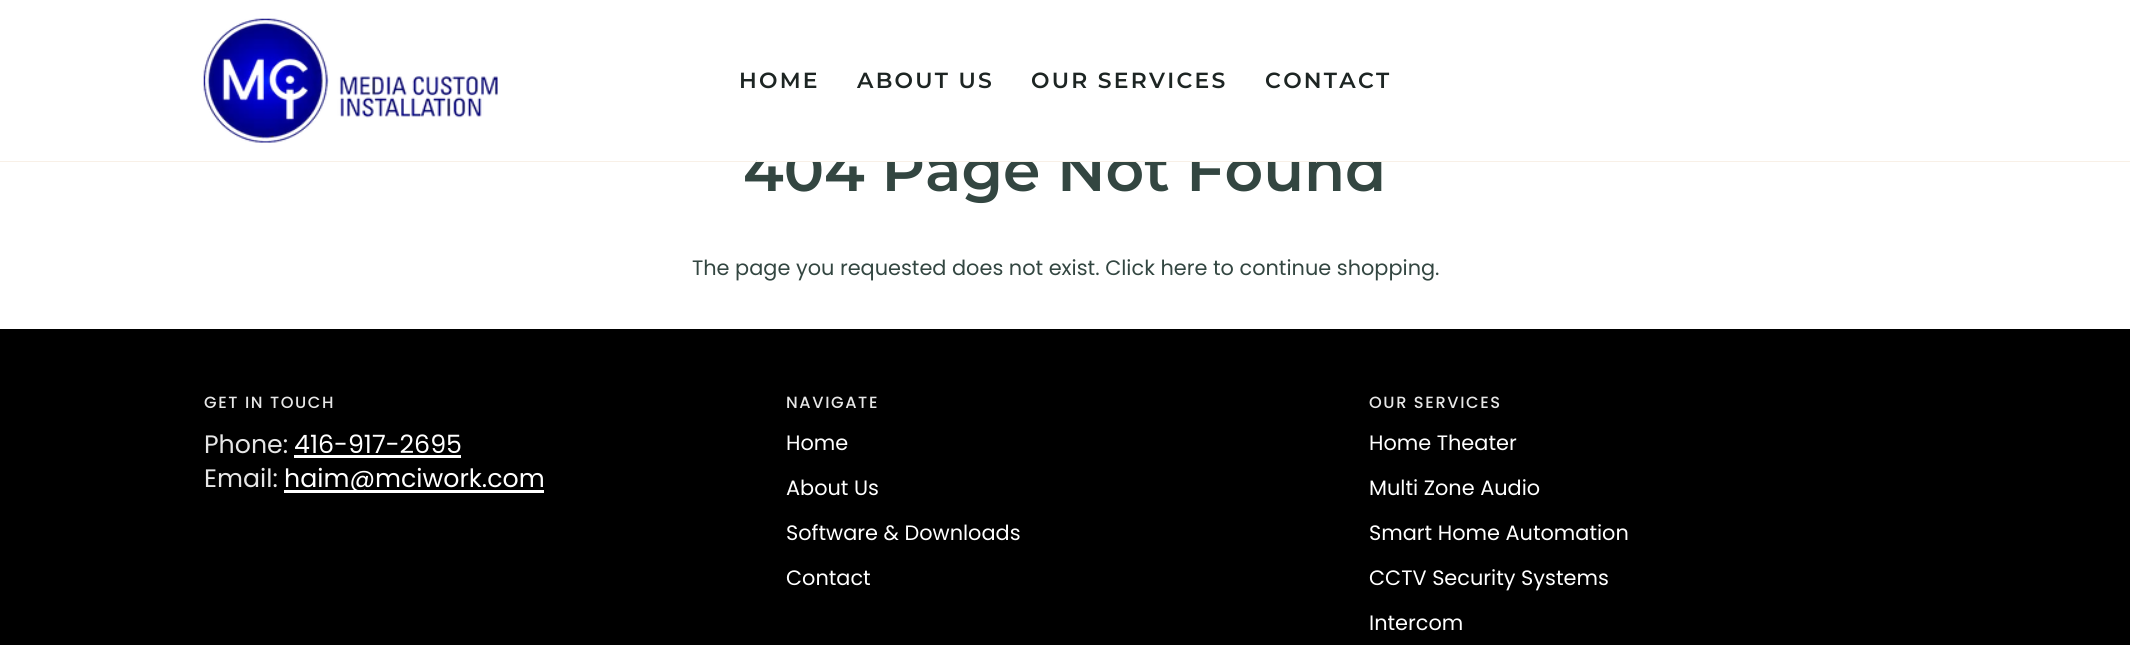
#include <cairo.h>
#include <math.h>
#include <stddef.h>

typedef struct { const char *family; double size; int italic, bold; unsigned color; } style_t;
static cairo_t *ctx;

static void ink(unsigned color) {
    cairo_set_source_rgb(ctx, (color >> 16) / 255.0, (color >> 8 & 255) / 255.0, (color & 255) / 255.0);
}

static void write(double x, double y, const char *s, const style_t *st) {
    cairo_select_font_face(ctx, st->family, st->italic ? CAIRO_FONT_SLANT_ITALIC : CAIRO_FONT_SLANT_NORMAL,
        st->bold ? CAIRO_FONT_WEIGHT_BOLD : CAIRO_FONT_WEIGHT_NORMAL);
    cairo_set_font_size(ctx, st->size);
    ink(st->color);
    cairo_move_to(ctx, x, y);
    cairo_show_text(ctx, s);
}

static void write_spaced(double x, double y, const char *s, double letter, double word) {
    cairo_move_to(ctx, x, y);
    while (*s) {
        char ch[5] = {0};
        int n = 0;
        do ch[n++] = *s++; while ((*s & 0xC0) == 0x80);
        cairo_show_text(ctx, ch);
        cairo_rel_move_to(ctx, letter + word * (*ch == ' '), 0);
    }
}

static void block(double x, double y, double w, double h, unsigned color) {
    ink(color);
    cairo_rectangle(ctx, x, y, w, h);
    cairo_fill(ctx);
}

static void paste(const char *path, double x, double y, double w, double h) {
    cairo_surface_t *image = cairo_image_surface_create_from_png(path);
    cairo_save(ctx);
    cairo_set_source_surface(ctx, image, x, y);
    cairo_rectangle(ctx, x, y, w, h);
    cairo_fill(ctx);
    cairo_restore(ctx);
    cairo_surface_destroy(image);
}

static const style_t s1 = {"Montserrat SemiBold", 60, 0, 0, 0x334641};
static const style_t s2 = {"Poppins", 20.85, 0, 0, 0x334641};
static const style_t s3 = {"Poppins", 25.25, 0, 0, 0xe6e6e6};
static const style_t s4 = {"Poppins", 25.25, 0, 0, 0xffffff};
static const style_t s5 = {"Poppins", 20.85, 0, 0, 0xffffff};

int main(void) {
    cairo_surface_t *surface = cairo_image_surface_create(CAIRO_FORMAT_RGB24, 2130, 645);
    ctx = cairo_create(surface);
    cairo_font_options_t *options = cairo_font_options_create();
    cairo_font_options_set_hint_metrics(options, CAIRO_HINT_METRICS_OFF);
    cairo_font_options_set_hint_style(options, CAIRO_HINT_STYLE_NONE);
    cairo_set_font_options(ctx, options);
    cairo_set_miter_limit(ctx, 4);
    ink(0xffffff);
    cairo_paint(ctx);
    write(743, 191, "404 Page Not Found", &s1);
    block(757, 146, 625, 15, 0xffffff);
    block(0, 161, 2130, 1, 0xf8f0e7);
    paste("pic1.png", 203, 18, 295, 125);
    cairo_set_font_size(ctx, 21.9);
    ink(0x1d2523);
    write_spaced(739, 88, "HOME", 2.25, 0);
    write_spaced(857, 88, "ABOUT US", 2.25, 0);
    write_spaced(1031, 88, "OUR SERVICES", 2.25, 0);
    write_spaced(1265, 88, "CONTACT", 2.25, 0);
    write(692, 275, "The page you requested does not exist. Click here to continue shopping.", &s2);
    block(0, 329, 2130, 316, 0x000000);
    cairo_select_font_face(ctx, "Poppins Medium", CAIRO_FONT_SLANT_NORMAL, CAIRO_FONT_WEIGHT_NORMAL);
    cairo_set_font_size(ctx, 16.25);
    ink(0xe6e6e6);
    write_spaced(204, 408, "GET IN TOUCH", 1.6, 0);
    write(204, 453, "Phone:", &s3);
    write(294, 453, "416-917-2695", &s4);
    block(294, 455, 167, 3, 0xffffff);
    write(204, 487, "Email:", &s3);
    block(284, 490, 260, 3, 0xffffff);
    write(284, 487, "haim@mciwork.com", &s4);
    cairo_select_font_face(ctx, "Poppins Medium", CAIRO_FONT_SLANT_NORMAL, CAIRO_FONT_WEIGHT_NORMAL);
    cairo_set_font_size(ctx, 16.25);
    ink(0xe6e6e6);
    write_spaced(786, 408, "NAVIGATE", 1.6, 0);
    write(786, 450, "Home", &s5);
    write(786, 495, "About Us", &s5);
    write(786, 540, "Software & Downloads", &s5);
    write(786, 585, "Contact", &s5);
    cairo_select_font_face(ctx, "Poppins Medium", CAIRO_FONT_SLANT_NORMAL, CAIRO_FONT_WEIGHT_NORMAL);
    cairo_set_font_size(ctx, 16.25);
    ink(0xe6e6e6);
    write_spaced(1369, 408, "OUR SERVICES", 1.6, 0);
    write(1369, 450, "Home Theater", &s5);
    write(1369, 495, "Multi Zone Audio", &s5);
    write(1369, 540, "Smart Home Automation", &s5);
    write(1369, 585, "CCTV Security Systems", &s5);
    write(1369, 630, "Intercom", &s5);
    cairo_surface_write_to_png(surface, "screenshot.png");
    cairo_font_options_destroy(options);
    cairo_destroy(ctx);
    cairo_surface_destroy(surface);
    return 0;
}
